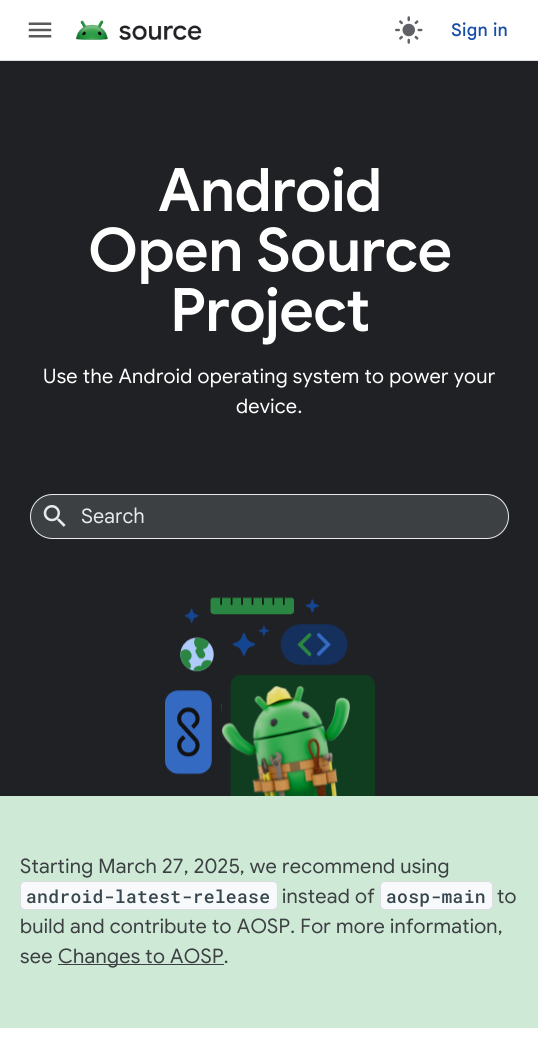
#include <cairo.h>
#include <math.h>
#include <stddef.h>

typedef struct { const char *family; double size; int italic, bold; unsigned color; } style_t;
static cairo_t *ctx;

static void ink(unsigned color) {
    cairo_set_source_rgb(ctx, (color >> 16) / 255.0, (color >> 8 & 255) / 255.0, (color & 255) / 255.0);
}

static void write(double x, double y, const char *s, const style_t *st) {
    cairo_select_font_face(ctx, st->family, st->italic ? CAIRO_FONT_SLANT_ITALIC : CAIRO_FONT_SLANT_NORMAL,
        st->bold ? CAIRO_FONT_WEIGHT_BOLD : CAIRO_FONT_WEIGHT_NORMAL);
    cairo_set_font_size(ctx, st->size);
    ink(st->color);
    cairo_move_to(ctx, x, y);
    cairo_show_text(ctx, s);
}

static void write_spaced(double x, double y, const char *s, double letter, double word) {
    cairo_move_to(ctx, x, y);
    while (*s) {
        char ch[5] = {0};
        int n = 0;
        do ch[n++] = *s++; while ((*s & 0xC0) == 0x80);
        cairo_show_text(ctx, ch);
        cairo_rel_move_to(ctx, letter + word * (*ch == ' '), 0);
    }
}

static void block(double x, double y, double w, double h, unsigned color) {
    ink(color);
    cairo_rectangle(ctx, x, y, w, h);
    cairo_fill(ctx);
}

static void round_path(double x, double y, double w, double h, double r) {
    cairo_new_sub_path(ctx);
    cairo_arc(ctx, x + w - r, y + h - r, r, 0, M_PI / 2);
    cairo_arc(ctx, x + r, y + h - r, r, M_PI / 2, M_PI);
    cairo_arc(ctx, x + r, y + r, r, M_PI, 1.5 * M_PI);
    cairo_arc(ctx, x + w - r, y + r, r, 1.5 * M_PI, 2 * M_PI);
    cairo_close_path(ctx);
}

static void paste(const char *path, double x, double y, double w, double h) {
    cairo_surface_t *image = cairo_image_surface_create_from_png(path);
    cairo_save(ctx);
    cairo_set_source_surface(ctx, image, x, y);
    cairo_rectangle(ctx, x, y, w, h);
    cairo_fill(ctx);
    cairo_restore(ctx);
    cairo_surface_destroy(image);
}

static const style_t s1 = {"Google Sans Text", 20, 0, 0, 0xe8eaed};

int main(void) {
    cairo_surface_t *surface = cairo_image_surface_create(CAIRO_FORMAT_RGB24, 538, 1043);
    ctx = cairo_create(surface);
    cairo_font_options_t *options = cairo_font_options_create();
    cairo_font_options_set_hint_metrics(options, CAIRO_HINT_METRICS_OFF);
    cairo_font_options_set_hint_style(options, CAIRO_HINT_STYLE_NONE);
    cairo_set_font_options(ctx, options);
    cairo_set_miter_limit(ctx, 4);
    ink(0xffffff);
    cairo_paint(ctx);
    block(0, 60, 538, 1, 0xdadce0);
    paste("pic1.png", 28, 22, 24, 16);
    paste("pic2.png", 75, 20, 127, 20);
    paste("pic3.png", 395, 16, 28, 28);
    cairo_select_font_face(ctx, "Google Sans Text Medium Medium", CAIRO_FONT_SLANT_NORMAL, CAIRO_FONT_WEIGHT_NORMAL);
    cairo_set_font_size(ctx, 17.5);
    ink(0x174ea6);
    write_spaced(451, 36, "Sign in", 0.3, 0);
    block(0, 61, 538, 735, 0x202124);
    paste("pic4.png", 165, 597, 210, 199);
    cairo_select_font_face(ctx, "Google Sans SemiBold", CAIRO_FONT_SLANT_NORMAL, CAIRO_FONT_WEIGHT_NORMAL);
    cairo_set_font_size(ctx, 60);
    ink(0xffffff);
    write_spaced(158, 211, "Android", -0.6, 0);
    write_spaced(88, 271, "Open Source", -0.6, 0);
    write_spaced(170, 331, "Project", -0.6, 0);
    cairo_select_font_face(ctx, "Google Sans", CAIRO_FONT_SLANT_NORMAL, CAIRO_FONT_WEIGHT_NORMAL);
    cairo_set_font_size(ctx, 20);
    write_spaced(43, 383, "Use the Android operating system to power your", 0.3, 0);
    write_spaced(236, 413, "device.", 0.3, 0);
    ink(0x3c4043);
    round_path(30.5, 494.5, 478, 44, 22);
    cairo_fill_preserve(ctx);
    ink(0xe8eaed);
    cairo_set_line_width(ctx, 1);
    cairo_stroke(ctx);
    paste("pic5.png", 43, 505, 23, 22);
    write(81, 523, "Search", &s1);
    block(0, 796, 538, 232, 0xceead6);
    cairo_select_font_face(ctx, "Google Sans", CAIRO_FONT_SLANT_NORMAL, CAIRO_FONT_WEIGHT_NORMAL);
    ink(0x3c4043);
    write_spaced(20, 873, "Starting March 27, 2025, we recommend using", 0.3, 0);
    ink(0xf8f9fa);
    round_path(20.5, 881.5, 257, 28, 4.5);
    cairo_fill_preserve(ctx);
    ink(0xdadce0);
    cairo_stroke(ctx);
    cairo_select_font_face(ctx, "Roboto Mono Medium", CAIRO_FONT_SLANT_NORMAL, CAIRO_FONT_WEIGHT_NORMAL);
    cairo_set_font_size(ctx, 18);
    ink(0x37474f);
    write_spaced(26, 903, "android-latest-release", 0.3, 0);
    cairo_select_font_face(ctx, "Google Sans", CAIRO_FONT_SLANT_NORMAL, CAIRO_FONT_WEIGHT_NORMAL);
    cairo_set_font_size(ctx, 20);
    ink(0x3c4043);
    write_spaced(282, 903, "instead of", 0.3, 0);
    ink(0xf8f9fa);
    round_path(380.5, 881.5, 112, 28, 4.5);
    cairo_fill_preserve(ctx);
    ink(0xdadce0);
    cairo_stroke(ctx);
    cairo_select_font_face(ctx, "Roboto Mono Medium", CAIRO_FONT_SLANT_NORMAL, CAIRO_FONT_WEIGHT_NORMAL);
    cairo_set_font_size(ctx, 18);
    ink(0x37474f);
    write_spaced(386, 903, "aosp-main", 0.3, 0);
    cairo_select_font_face(ctx, "Google Sans", CAIRO_FONT_SLANT_NORMAL, CAIRO_FONT_WEIGHT_NORMAL);
    cairo_set_font_size(ctx, 20);
    ink(0x3c4043);
    write_spaced(497, 903, "to", 0.3, 0);
    write_spaced(20, 933, "build and contribute to AOSP. For more information,", 0.3, 0);
    write_spaced(20, 963, "see", 0.3, 0);
    block(58, 964, 166, 1, 0x3c4043);
    write_spaced(58, 963, "Changes to AOSP.", 0.3, 0);
    cairo_surface_write_to_png(surface, "screenshot.png");
    cairo_font_options_destroy(options);
    cairo_destroy(ctx);
    cairo_surface_destroy(surface);
    return 0;
}
